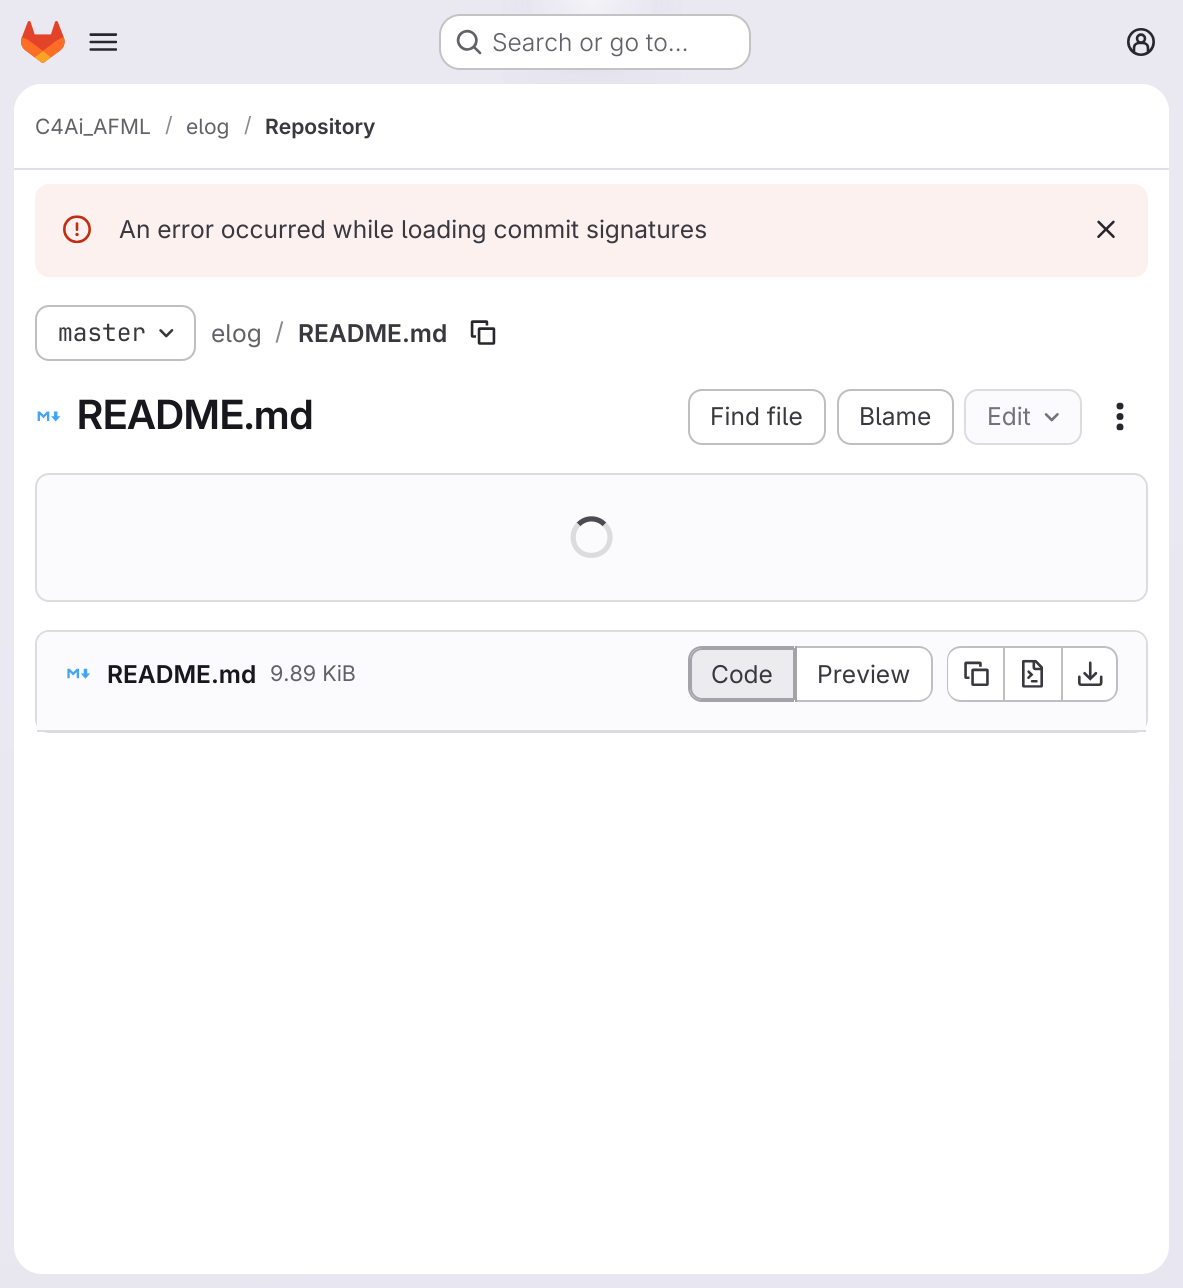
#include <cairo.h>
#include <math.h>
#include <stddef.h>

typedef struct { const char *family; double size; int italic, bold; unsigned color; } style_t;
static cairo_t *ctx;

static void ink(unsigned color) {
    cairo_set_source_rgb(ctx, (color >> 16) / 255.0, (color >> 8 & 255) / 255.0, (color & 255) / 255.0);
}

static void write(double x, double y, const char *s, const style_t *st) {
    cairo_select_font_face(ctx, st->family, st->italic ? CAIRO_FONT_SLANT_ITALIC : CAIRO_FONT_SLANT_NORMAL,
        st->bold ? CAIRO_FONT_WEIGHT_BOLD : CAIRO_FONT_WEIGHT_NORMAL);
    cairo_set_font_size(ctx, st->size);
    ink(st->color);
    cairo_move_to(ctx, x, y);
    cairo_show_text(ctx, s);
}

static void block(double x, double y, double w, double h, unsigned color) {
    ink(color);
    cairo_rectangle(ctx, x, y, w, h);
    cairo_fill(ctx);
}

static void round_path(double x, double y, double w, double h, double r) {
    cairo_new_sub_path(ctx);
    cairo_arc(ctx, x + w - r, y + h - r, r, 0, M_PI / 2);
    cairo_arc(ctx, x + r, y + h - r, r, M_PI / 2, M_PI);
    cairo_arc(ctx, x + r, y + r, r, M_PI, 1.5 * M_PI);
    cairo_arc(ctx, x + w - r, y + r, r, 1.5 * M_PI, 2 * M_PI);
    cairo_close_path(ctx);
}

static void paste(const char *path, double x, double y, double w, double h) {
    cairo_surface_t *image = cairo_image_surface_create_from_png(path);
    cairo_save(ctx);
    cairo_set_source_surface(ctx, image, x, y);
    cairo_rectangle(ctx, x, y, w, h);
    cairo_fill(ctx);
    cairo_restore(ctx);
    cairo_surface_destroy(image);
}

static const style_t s1 = {"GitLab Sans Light", 24.5, 0, 0, 0x626168};
static const style_t s2 = {"GitLab Sans", 21, 0, 0, 0x626168};
static const style_t s3 = {"GitLab Sans", 21, 0, 0, 0x89888d};
static const style_t s4 = {"GitLab Sans SemiBold", 21, 0, 0, 0x3a383f};
static const style_t s5 = {"GitLab Sans", 24.5, 0, 0, 0x3a383f};
static const style_t s6 = {"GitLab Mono", 24.5, 0, 0, 0x3a383f};
static const style_t s7 = {"GitLab Sans", 24.5, 0, 0, 0x626168};
static const style_t s8 = {"GitLab Sans", 24.5, 0, 0, 0x89888d};
static const style_t s9 = {"GitLab Sans SemiBold", 24.5, 0, 0, 0x3a383f};
static const style_t s10 = {"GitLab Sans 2 SemiBold", 40.25, 0, 0, 0x18171d};
static const style_t s11 = {"GitLab Sans", 24.5, 0, 0, 0x737278};
static const style_t s12 = {"GitLab Sans SemiBold", 24.5, 0, 0, 0x18171d};
static const style_t s13 = {"GitLab Sans", 21.5, 0, 0, 0x626168};

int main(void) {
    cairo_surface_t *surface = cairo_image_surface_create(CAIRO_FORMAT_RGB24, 1183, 1288);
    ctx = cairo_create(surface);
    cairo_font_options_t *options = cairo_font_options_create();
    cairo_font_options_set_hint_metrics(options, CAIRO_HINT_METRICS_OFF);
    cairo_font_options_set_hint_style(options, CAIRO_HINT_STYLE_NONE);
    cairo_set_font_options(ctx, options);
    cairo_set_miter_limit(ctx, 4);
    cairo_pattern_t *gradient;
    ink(0xffffff);
    cairo_paint(ctx);
    gradient = cairo_pattern_create_linear(719, 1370, 464, -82);
    cairo_pattern_add_color_stop_rgba(gradient, 0, 0.91, 0.902, 0.941, 1);
    cairo_pattern_add_color_stop_rgba(gradient, 0.7, 0.918, 0.914, 0.949, 1);
    cairo_set_source(ctx, gradient);
    cairo_pattern_destroy(gradient);
    cairo_rectangle(ctx, 0, 0, 1183, 1288);
    cairo_fill(ctx);
    gradient = cairo_pattern_create_radial(0, 0, 0, 0, 0, 1);
    cairo_pattern_set_matrix(gradient, &(cairo_matrix_t){1.0 / 592, 0, 0, 1.0 / 1288, -1.0 * 592 / 592, -1.0 * 0 / 1288});
    cairo_pattern_add_color_stop_rgba(gradient, 0, 0.894, 0.886, 0.929, 1);
    cairo_pattern_add_color_stop_rgba(gradient, 0.21, 0.894, 0.886, 0.929, 0);
    cairo_set_source(ctx, gradient);
    cairo_pattern_destroy(gradient);
    cairo_rectangle(ctx, 502, 0, 179, 84);
    cairo_fill(ctx);
    gradient = cairo_pattern_create_radial(0, 0, 0, 0, 0, 1);
    cairo_pattern_set_matrix(gradient, &(cairo_matrix_t){1.0 / 592, 0, 0, 1.0 / 1288, -1.0 * 592 / 592, -1.0 * 0 / 1288});
    cairo_pattern_add_color_stop_rgba(gradient, 0, 0.894, 0.886, 0.925, 1);
    cairo_pattern_add_color_stop_rgba(gradient, 0.15, 0.894, 0.886, 0.925, 0);
    cairo_set_source(ctx, gradient);
    cairo_pattern_destroy(gradient);
    cairo_rectangle(ctx, 556, 5, 72, 68);
    cairo_fill(ctx);
    gradient = cairo_pattern_create_radial(592, 0, 0, 592, 0, 1417);
    cairo_pattern_add_color_stop_rgba(gradient, 0, 1, 1, 1, 0.6);
    cairo_pattern_add_color_stop_rgba(gradient, 0.05, 1, 1, 1, 0);
    cairo_set_source(ctx, gradient);
    cairo_pattern_destroy(gradient);
    cairo_rectangle(ctx, 532, 0, 120, 14);
    cairo_fill(ctx);
    paste("pic1.png", 21, 21, 44, 42);
    paste("pic2.png", 89, 33, 29, 18);
    ink(0xffffff);
    round_path(439, 14, 312, 56, 21);
    cairo_fill(ctx);
    round_path(440, 15, 310, 54, 20);
    cairo_set_source_rgba(ctx, 0.02, 0.02, 0.024, 0.24);
    cairo_stroke(ctx);
    paste("pic3.png", 456, 29, 26, 26);
    write(492, 51, "Search or go to…", &s1);
    paste("pic4.png", 1127, 28, 28, 28);
    ink(0xffffff);
    round_path(14, 84, 1155, 1190, 28);
    cairo_fill(ctx);
    cairo_new_path(ctx);
    cairo_move_to(ctx, 42, 84);
    cairo_line_to(ctx, 1141, 84);
    cairo_curve_to(ctx, 1156.5, 84, 1169, 96.5, 1169, 112);
    cairo_line_to(ctx, 1169, 170);
    cairo_line_to(ctx, 14, 170);
    cairo_line_to(ctx, 14, 112);
    cairo_curve_to(ctx, 14, 96.5, 26.5, 84, 42, 84);
    cairo_close_path(ctx);
    cairo_fill(ctx);
    block(14, 168, 1155, 2, 0xe1dfec);
    write(35, 134, "C4Ai_AFML", &s2);
    write(165, 132, "/", &s3);
    write(186, 134, "elog", &s2);
    write(244, 132, "/", &s3);
    write(265, 134, "Repository", &s4);
    ink(0xfcf1ef);
    round_path(35, 184, 1113, 93, 14);
    cairo_fill(ctx);
    paste("pic5.png", 63, 215, 28, 29);
    write(119, 238, "An error occurred while loading commit signatures", &s5);
    paste("pic6.png", 1097, 220, 18, 18);
    round_path(36, 306, 159, 54, 13);
    ink(0xbfbfc3);
    cairo_stroke(ctx);
    write(58, 341, "master", &s6);
    paste("pic7.png", 159, 329, 15, 9);
    write(211, 342, "elog", &s7);
    write(275, 340, "/", &s8);
    write(298, 342, "README.md", &s9);
    paste("pic8.png", 470, 320, 26, 25);
    paste("pic9.png", 37, 411, 24, 11);
    write(77, 429, "README.md", &s10);
    round_path(689, 390, 136, 54, 13);
    ink(0xbfbfc3);
    cairo_stroke(ctx);
    write(710, 425, "Find file", &s5);
    round_path(838, 390, 115, 54, 13);
    ink(0xbfbfc3);
    cairo_stroke(ctx);
    write(859, 425, "Blame", &s5);
    ink(0xfbfafd);
    round_path(965, 390, 116, 54, 13);
    cairo_fill_preserve(ctx);
    ink(0xdcdcde);
    cairo_stroke(ctx);
    write(987, 425, "Edit", &s11);
    paste("pic10.png", 1044, 413, 15, 9);
    paste("pic11.png", 1116, 402, 8, 29);
    ink(0xfbfafd);
    round_path(36, 474, 1111, 127, 13);
    cairo_fill_preserve(ctx);
    ink(0xdcdcde);
    cairo_stroke(ctx);
    cairo_new_path(ctx);
    cairo_move_to(ctx, 578.5, 524.5);
    cairo_curve_to(ctx, 585.5, 517, 597.5, 517, 604.5, 524.5);
    ink(0x4c4b51);
    cairo_set_line_width(ctx, 5.2);
    cairo_stroke(ctx);
    cairo_new_path(ctx);
    cairo_move_to(ctx, 604.5, 524.5);
    cairo_curve_to(ctx, 608, 527.5, 610, 532.5, 610, 537);
    cairo_curve_to(ctx, 610, 559, 578, 562.5, 573.5, 541);
    cairo_curve_to(ctx, 572.5, 535, 574, 528.5, 578.5, 524.5);
    ink(0xdcdcde);
    cairo_stroke(ctx);
    round_path(36, 631, 1111, 101, 13);
    cairo_set_line_width(ctx, 2);
    cairo_stroke(ctx);
    ink(0xfbfafd);
    cairo_new_path(ctx);
    cairo_move_to(ctx, 49, 632);
    cairo_line_to(ctx, 1134, 632);
    cairo_curve_to(ctx, 1140.5, 632, 1146, 637.5, 1146, 644);
    cairo_line_to(ctx, 1146, 732);
    cairo_line_to(ctx, 37, 732);
    cairo_line_to(ctx, 37, 644);
    cairo_curve_to(ctx, 37, 637.5, 42.5, 632, 49, 632);
    cairo_close_path(ctx);
    cairo_fill(ctx);
    block(37, 730, 1109, 2, 0xdcdcde);
    paste("pic12.png", 67, 668, 23, 11);
    write(107, 683, "README.md", &s12);
    write(270, 681, "9.89 KiB", &s13);
    ink(0xececef);
    cairo_new_path(ctx);
    cairo_move_to(ctx, 702, 649);
    cairo_line_to(ctx, 794, 649);
    cairo_line_to(ctx, 794, 699);
    cairo_line_to(ctx, 702, 699);
    cairo_curve_to(ctx, 696, 699, 691, 694, 691, 688);
    cairo_line_to(ctx, 691, 660);
    cairo_curve_to(ctx, 691, 654, 696, 649, 702, 649);
    cairo_close_path(ctx);
    cairo_fill_preserve(ctx);
    ink(0xa4a3a8);
    cairo_stroke(ctx);
    cairo_set_fill_rule(ctx, CAIRO_FILL_RULE_EVEN_ODD);
    cairo_new_path(ctx);
    cairo_move_to(ctx, 702, 646);
    cairo_line_to(ctx, 794, 646);
    cairo_line_to(ctx, 794, 702);
    cairo_line_to(ctx, 702, 702);
    cairo_curve_to(ctx, 694, 702, 688, 695, 688, 688);
    cairo_line_to(ctx, 688, 660);
    cairo_curve_to(ctx, 688, 652, 694, 646, 702, 646);
    cairo_close_path(ctx);
    cairo_move_to(ctx, 702, 648);
    cairo_line_to(ctx, 794, 648);
    cairo_line_to(ctx, 794, 700);
    cairo_line_to(ctx, 702, 700);
    cairo_curve_to(ctx, 695, 700, 690, 695, 690, 688);
    cairo_line_to(ctx, 690, 660);
    cairo_curve_to(ctx, 690, 653, 695, 648, 702, 648);
    cairo_close_path(ctx);
    cairo_fill(ctx);
    write(711, 683, "Code", &s5);
    ink(0xffffff);
    cairo_new_path(ctx);
    cairo_move_to(ctx, 796, 648);
    cairo_line_to(ctx, 919, 648);
    cairo_curve_to(ctx, 925.5, 648, 931, 653.5, 931, 660);
    cairo_line_to(ctx, 931, 688);
    cairo_curve_to(ctx, 931, 694.5, 925.5, 700, 919, 700);
    cairo_line_to(ctx, 796, 700);
    cairo_close_path(ctx);
    cairo_fill(ctx);
    ink(0xbfbfc3);
    cairo_new_path(ctx);
    cairo_move_to(ctx, 796, 646);
    cairo_line_to(ctx, 919, 646);
    cairo_curve_to(ctx, 926, 646, 933, 652, 933, 660);
    cairo_line_to(ctx, 933, 688);
    cairo_curve_to(ctx, 933, 695, 926, 702, 919, 702);
    cairo_line_to(ctx, 796, 702);
    cairo_close_path(ctx);
    cairo_move_to(ctx, 796, 648);
    cairo_line_to(ctx, 919, 648);
    cairo_curve_to(ctx, 926, 648, 931, 653, 931, 660);
    cairo_line_to(ctx, 931, 688);
    cairo_curve_to(ctx, 931, 695, 926, 700, 919, 700);
    cairo_line_to(ctx, 796, 700);
    cairo_close_path(ctx);
    cairo_fill(ctx);
    block(795, 646, 2, 56, 0xa4a3a8);
    write(817, 683, "Preview", &s5);
    ink(0xffffff);
    cairo_new_path(ctx);
    cairo_move_to(ctx, 961, 648);
    cairo_line_to(ctx, 1003, 648);
    cairo_line_to(ctx, 1003, 700);
    cairo_line_to(ctx, 961, 700);
    cairo_curve_to(ctx, 954.5, 700, 949, 694.5, 949, 688);
    cairo_line_to(ctx, 949, 660);
    cairo_curve_to(ctx, 949, 653.5, 954.5, 648, 961, 648);
    cairo_close_path(ctx);
    cairo_fill(ctx);
    ink(0xbfbfc3);
    cairo_new_path(ctx);
    cairo_move_to(ctx, 961, 646);
    cairo_line_to(ctx, 1003, 646);
    cairo_line_to(ctx, 1003, 702);
    cairo_line_to(ctx, 961, 702);
    cairo_curve_to(ctx, 953, 702, 947, 695, 947, 688);
    cairo_line_to(ctx, 947, 660);
    cairo_curve_to(ctx, 947, 652, 953, 646, 961, 646);
    cairo_close_path(ctx);
    cairo_move_to(ctx, 961, 648);
    cairo_line_to(ctx, 1003, 648);
    cairo_line_to(ctx, 1003, 700);
    cairo_line_to(ctx, 961, 700);
    cairo_curve_to(ctx, 954, 700, 948, 695, 948, 688);
    cairo_line_to(ctx, 948, 660);
    cairo_curve_to(ctx, 948, 653, 954, 648, 961, 648);
    cairo_close_path(ctx);
    cairo_fill(ctx);
    paste("pic13.png", 964, 661, 25, 25);
    block(1005, 648, 56, 52, 0xffffff);
    block(1005, 646, 56, 2, 0xbfbfc3);
    block(1005, 700, 56, 2, 0xbfbfc3);
    block(1003, 646, 2, 56, 0xbfbfc3);
    paste("pic14.png", 1022, 659, 21, 29);
    ink(0xffffff);
    cairo_new_path(ctx);
    cairo_move_to(ctx, 1062, 648);
    cairo_line_to(ctx, 1105, 648);
    cairo_curve_to(ctx, 1111.5, 648, 1117, 653.5, 1117, 660);
    cairo_line_to(ctx, 1117, 688);
    cairo_curve_to(ctx, 1117, 694.5, 1111.5, 700, 1105, 700);
    cairo_line_to(ctx, 1062, 700);
    cairo_close_path(ctx);
    cairo_fill(ctx);
    ink(0xbfbfc3);
    cairo_new_path(ctx);
    cairo_move_to(ctx, 1062, 646);
    cairo_line_to(ctx, 1104, 646);
    cairo_curve_to(ctx, 1112, 646, 1118, 652, 1118, 660);
    cairo_line_to(ctx, 1118, 688);
    cairo_curve_to(ctx, 1118, 695, 1112, 702, 1104, 702);
    cairo_line_to(ctx, 1062, 702);
    cairo_close_path(ctx);
    cairo_move_to(ctx, 1062, 648);
    cairo_line_to(ctx, 1104, 648);
    cairo_curve_to(ctx, 1111, 648, 1116, 653, 1116, 660);
    cairo_line_to(ctx, 1116, 688);
    cairo_curve_to(ctx, 1116, 695, 1111, 700, 1104, 700);
    cairo_line_to(ctx, 1062, 700);
    cairo_close_path(ctx);
    cairo_fill(ctx);
    block(1061, 646, 2, 56, 0xbfbfc3);
    paste("pic15.png", 1078, 661, 25, 25);
    cairo_surface_write_to_png(surface, "screenshot.png");
    cairo_font_options_destroy(options);
    cairo_destroy(ctx);
    cairo_surface_destroy(surface);
    return 0;
}
